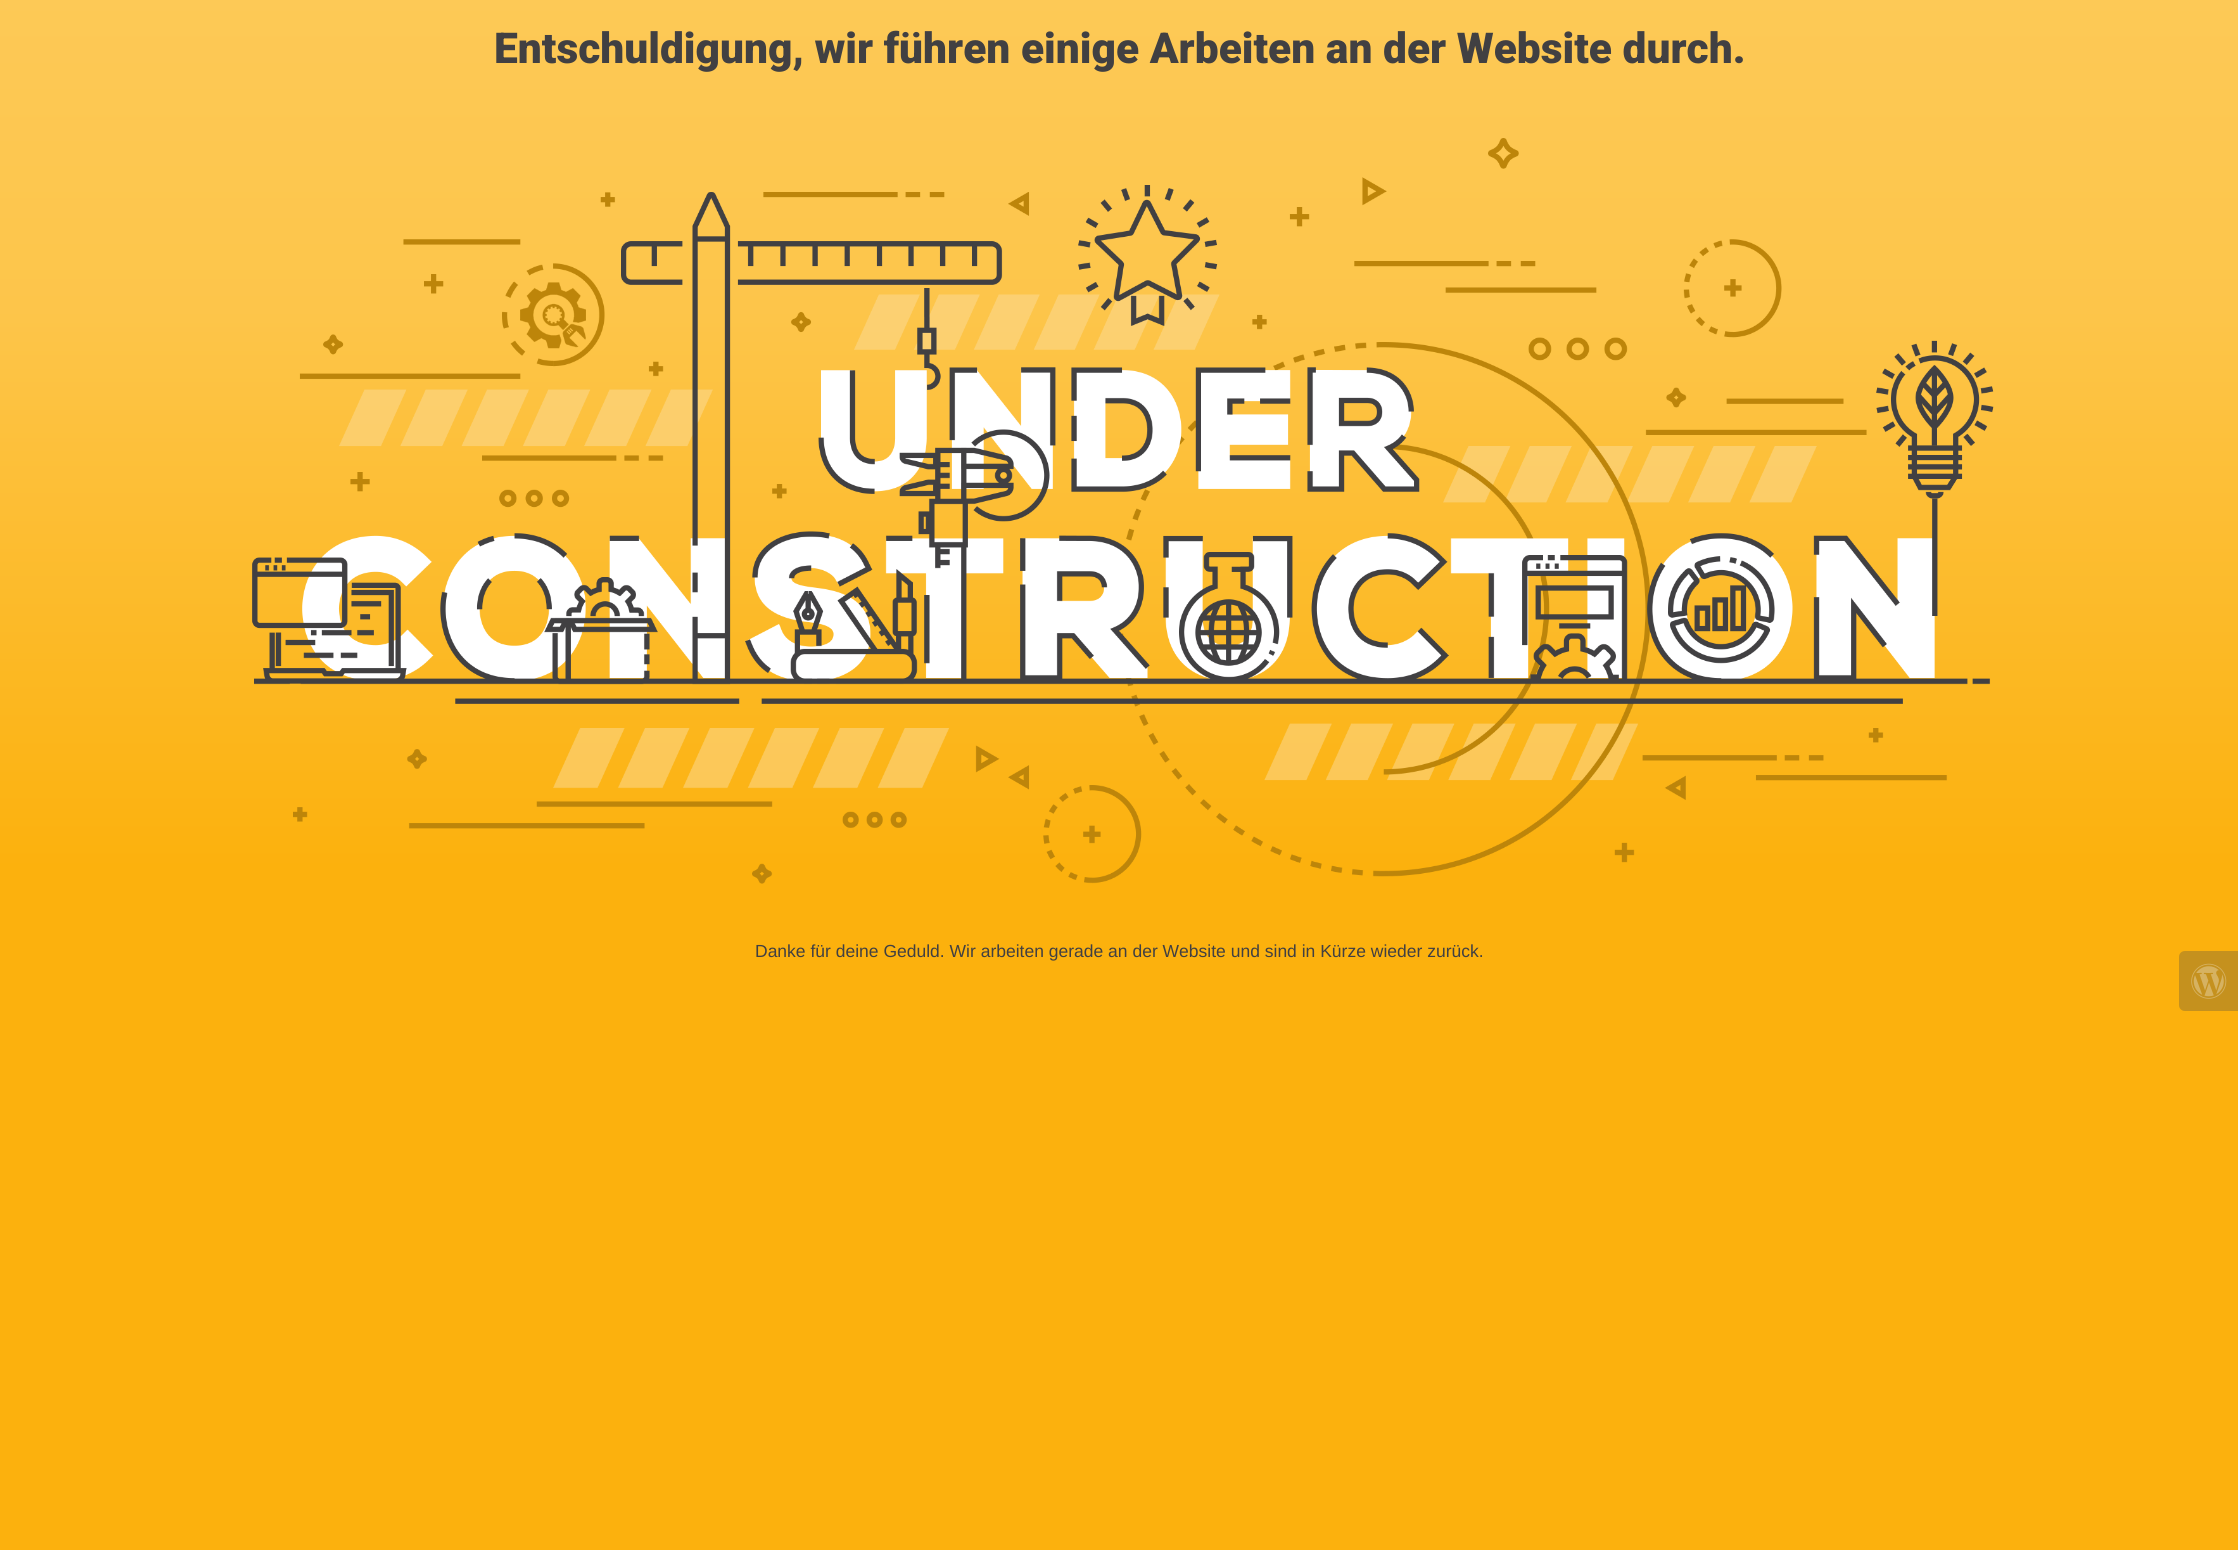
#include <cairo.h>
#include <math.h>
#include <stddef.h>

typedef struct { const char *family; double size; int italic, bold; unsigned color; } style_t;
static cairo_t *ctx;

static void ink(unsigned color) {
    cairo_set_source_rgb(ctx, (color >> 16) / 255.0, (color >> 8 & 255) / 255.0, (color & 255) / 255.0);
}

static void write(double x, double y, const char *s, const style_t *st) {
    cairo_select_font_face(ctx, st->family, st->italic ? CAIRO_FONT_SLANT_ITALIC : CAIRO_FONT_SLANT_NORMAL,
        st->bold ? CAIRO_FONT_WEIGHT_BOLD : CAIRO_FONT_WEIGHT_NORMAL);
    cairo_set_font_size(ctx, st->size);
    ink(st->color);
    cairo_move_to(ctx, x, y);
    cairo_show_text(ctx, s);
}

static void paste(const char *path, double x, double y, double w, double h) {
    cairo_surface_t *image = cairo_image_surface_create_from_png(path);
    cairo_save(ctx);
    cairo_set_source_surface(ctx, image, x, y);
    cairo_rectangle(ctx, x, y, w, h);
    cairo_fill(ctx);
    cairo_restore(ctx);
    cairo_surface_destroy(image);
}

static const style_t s1 = {"Roboto Black", 42.5, 0, 0, 0x414042};
static const style_t s2 = {"Liberation Sans", 17.5, 0, 0, 0x414042};

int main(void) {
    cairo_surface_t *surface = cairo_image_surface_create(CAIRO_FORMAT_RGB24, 2238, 1550);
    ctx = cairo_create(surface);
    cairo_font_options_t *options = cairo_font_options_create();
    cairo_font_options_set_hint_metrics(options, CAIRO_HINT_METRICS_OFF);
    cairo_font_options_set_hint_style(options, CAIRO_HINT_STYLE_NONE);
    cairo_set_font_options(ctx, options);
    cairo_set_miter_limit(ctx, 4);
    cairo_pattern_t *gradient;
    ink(0xffffff);
    cairo_paint(ctx);
    gradient = cairo_pattern_create_linear(1119, 1550, 1119, 0);
    cairo_pattern_add_color_stop_rgba(gradient, 0, 0.988, 0.694, 0.051, 1);
    cairo_pattern_add_color_stop_rgba(gradient, 0.44, 0.988, 0.694, 0.051, 1);
    cairo_pattern_add_color_stop_rgba(gradient, 0.8, 0.992, 0.773, 0.29, 1);
    cairo_pattern_add_color_stop_rgba(gradient, 1, 0.992, 0.788, 0.337, 1);
    cairo_set_source(ctx, gradient);
    cairo_pattern_destroy(gradient);
    cairo_rectangle(ctx, 0, 0, 2238, 1550);
    cairo_fill(ctx);
    write(494, 63, "Entschuldigung, wir führen einige Arbeiten an der Website durch.", &s1);
    paste("pic1.png", 252, 138, 1742, 746);
    write(755, 957, "Danke für deine Geduld. Wir arbeiten gerade an der Website und sind in Kürze wieder zurück.", &s2);
    ink(0xc5911e);
    cairo_new_path(ctx);
    cairo_move_to(ctx, 2185, 951);
    cairo_line_to(ctx, 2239, 951);
    cairo_line_to(ctx, 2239, 1011);
    cairo_line_to(ctx, 2185, 1011);
    cairo_curve_to(ctx, 2181.5, 1011, 2179, 1008.5, 2179, 1005);
    cairo_line_to(ctx, 2179, 957);
    cairo_curve_to(ctx, 2179, 953.5, 2181.5, 951, 2185, 951);
    cairo_close_path(ctx);
    cairo_fill(ctx);
    paste("pic2.png", 2191, 963, 36, 36);
    cairo_surface_write_to_png(surface, "screenshot.png");
    cairo_font_options_destroy(options);
    cairo_destroy(ctx);
    cairo_surface_destroy(surface);
    return 0;
}
